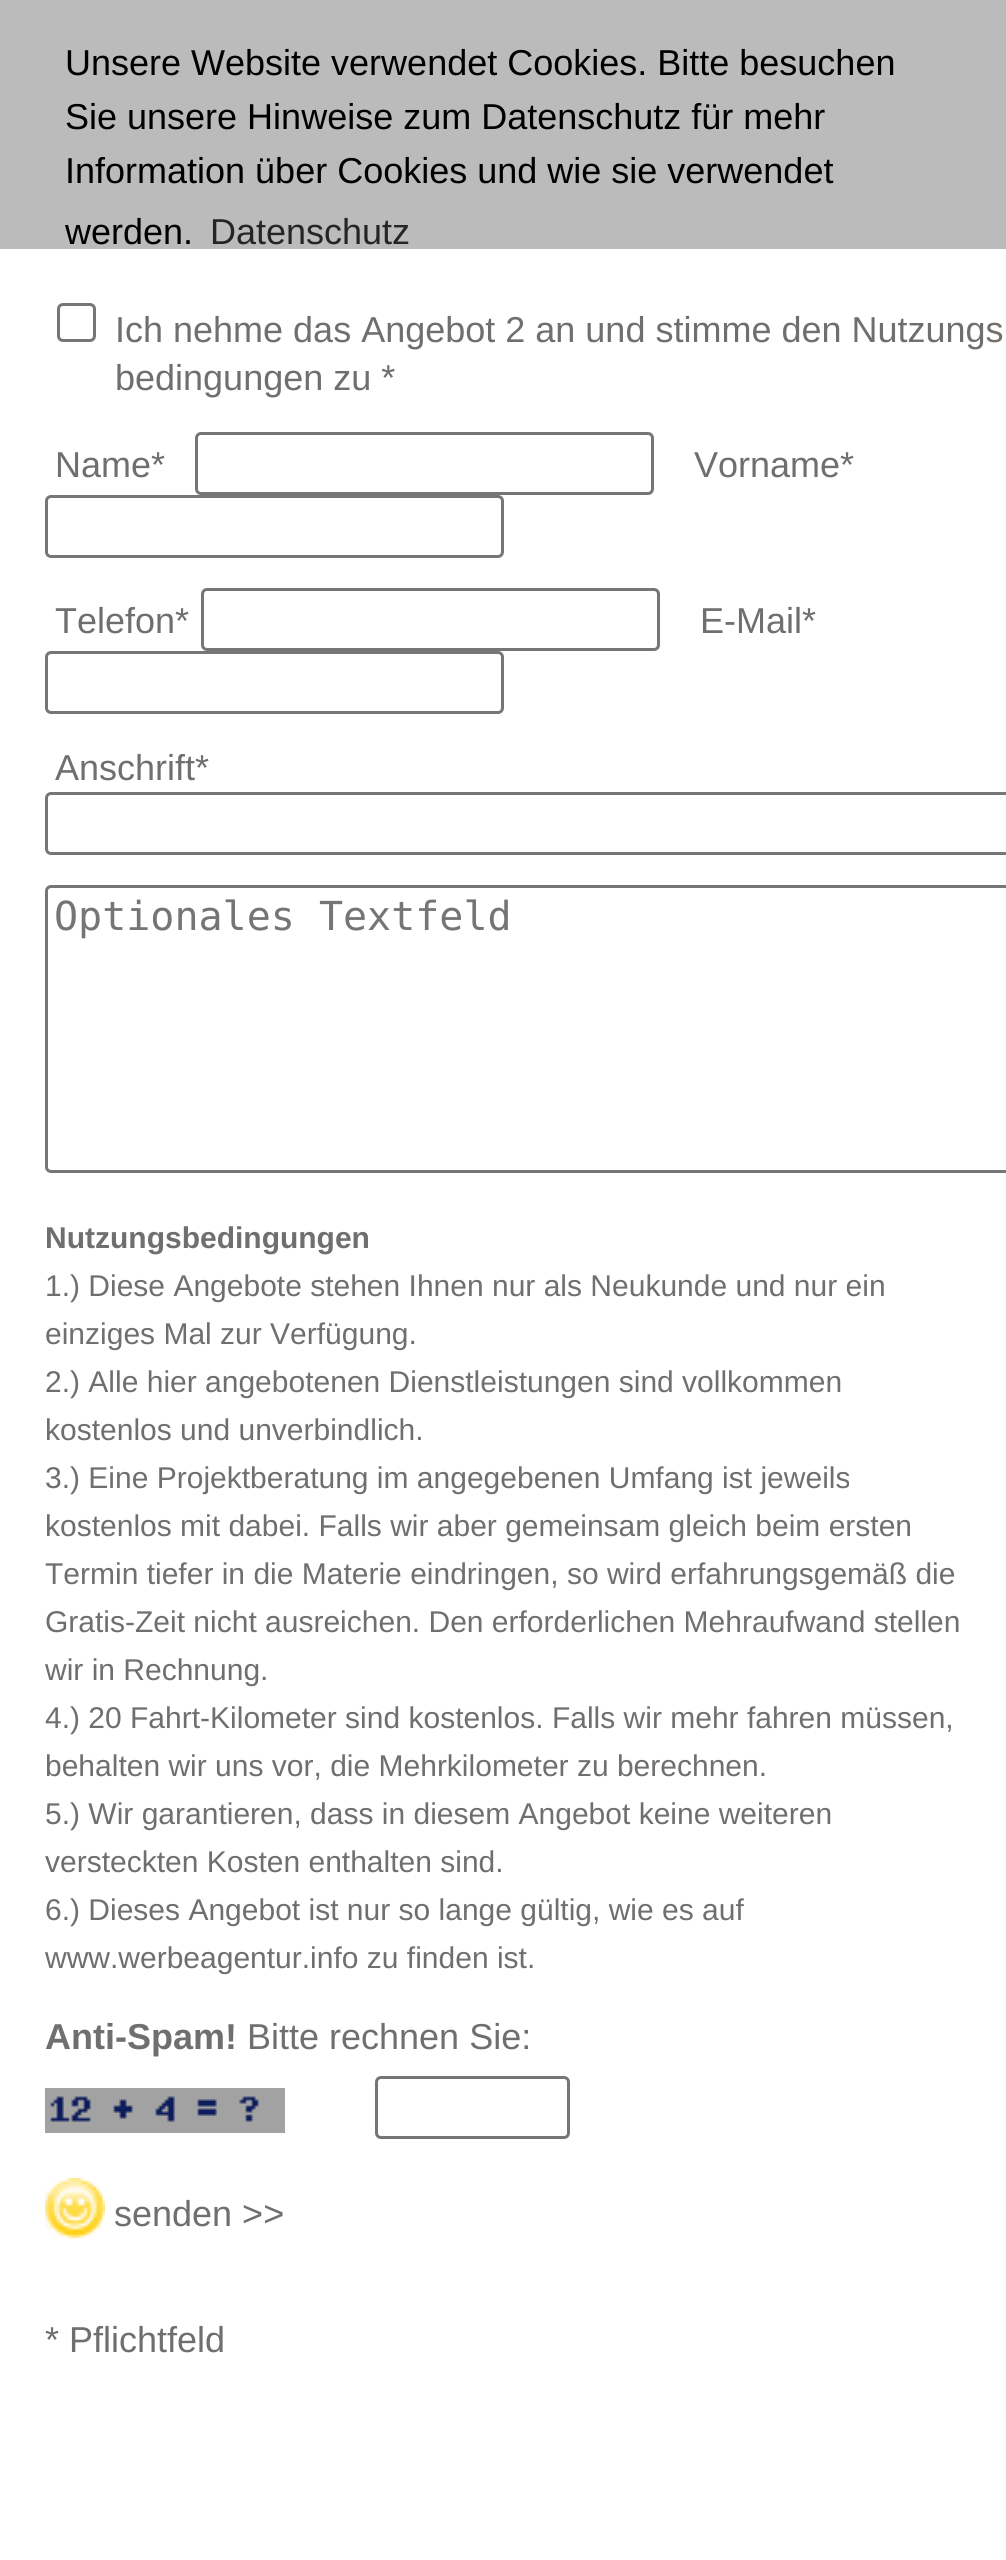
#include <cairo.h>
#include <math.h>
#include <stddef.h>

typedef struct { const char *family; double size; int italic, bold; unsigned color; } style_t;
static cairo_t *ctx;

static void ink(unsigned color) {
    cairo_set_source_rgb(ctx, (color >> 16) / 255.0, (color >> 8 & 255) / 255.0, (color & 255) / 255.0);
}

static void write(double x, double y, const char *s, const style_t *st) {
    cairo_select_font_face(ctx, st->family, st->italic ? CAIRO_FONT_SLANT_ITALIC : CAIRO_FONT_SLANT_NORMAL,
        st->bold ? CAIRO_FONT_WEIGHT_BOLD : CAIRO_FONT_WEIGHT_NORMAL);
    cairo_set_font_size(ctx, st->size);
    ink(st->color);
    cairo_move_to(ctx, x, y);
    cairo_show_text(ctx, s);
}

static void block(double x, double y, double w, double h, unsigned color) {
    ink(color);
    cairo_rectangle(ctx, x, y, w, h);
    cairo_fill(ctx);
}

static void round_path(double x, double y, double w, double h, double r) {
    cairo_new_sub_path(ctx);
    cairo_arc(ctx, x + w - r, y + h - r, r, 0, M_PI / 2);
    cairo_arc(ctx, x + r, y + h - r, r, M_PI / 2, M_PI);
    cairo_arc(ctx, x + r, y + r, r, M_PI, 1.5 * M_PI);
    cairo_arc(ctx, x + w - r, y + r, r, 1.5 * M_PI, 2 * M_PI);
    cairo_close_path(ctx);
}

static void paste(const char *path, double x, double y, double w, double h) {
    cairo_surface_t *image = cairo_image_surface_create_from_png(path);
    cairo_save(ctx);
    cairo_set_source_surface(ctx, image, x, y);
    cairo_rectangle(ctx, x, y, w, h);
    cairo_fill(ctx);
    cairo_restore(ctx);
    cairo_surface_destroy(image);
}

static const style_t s1 = {"Liberation Sans", 36, 0, 0, 0x000000};
static const style_t s2 = {"Liberation Sans", 36, 0, 0, 0x252525};
static const style_t s3 = {"Liberation Sans", 36, 0, 0, 0x706f6e};
static const style_t s4 = {"DejaVu Sans Mono", 40, 0, 0, 0x757575};
static const style_t s5 = {"Liberation Sans", 30, 0, 1, 0x706f6e};
static const style_t s6 = {"Liberation Sans", 30, 0, 0, 0x706f6e};
static const style_t s7 = {"Liberation Sans", 36, 0, 1, 0x706f6e};

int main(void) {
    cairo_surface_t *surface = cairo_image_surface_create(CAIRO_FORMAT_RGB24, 1006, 2560);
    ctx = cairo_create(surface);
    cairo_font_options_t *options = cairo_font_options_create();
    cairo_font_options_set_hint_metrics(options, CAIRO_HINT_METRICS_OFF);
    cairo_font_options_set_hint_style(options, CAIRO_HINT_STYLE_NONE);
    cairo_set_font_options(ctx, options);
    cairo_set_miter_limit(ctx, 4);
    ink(0xffffff);
    cairo_paint(ctx);
    block(0, 0, 1006, 249, 0xbbbbbb);
    write(65, 75, "Unsere Website verwendet Cookies. Bitte besuchen", &s1);
    write(65, 129, "Sie unsere Hinweise zum Datenschutz für mehr", &s1);
    write(65, 183, "Information über Cookies und wie sie verwendet", &s1);
    write(65, 244, "werden.", &s1);
    write(210, 244, "Datenschutz", &s2);
    round_path(58.5, 304.5, 36, 36, 4.5);
    ink(0x767676);
    cairo_set_line_width(ctx, 3);
    cairo_stroke(ctx);
    write(115, 342, "Ich nehme das Angebot 2 an und stimme den Nutzungs", &s3);
    write(115, 390, "bedingungen zu *", &s3);
    write(55, 477, "Name*", &s3);
    round_path(196.5, 433.5, 456, 60, 4.5);
    ink(0x767676);
    cairo_stroke(ctx);
    write(694, 477, "Vorname*", &s3);
    round_path(46.5, 496.5, 456, 60, 4.5);
    ink(0x767676);
    cairo_stroke(ctx);
    write(55, 633, "Telefon*", &s3);
    round_path(202.5, 589.5, 456, 60, 4.5);
    ink(0x767676);
    cairo_stroke(ctx);
    write(700, 633, "E-Mail*", &s3);
    round_path(46.5, 652.5, 456, 60, 4.5);
    ink(0x767676);
    cairo_stroke(ctx);
    write(55, 780, "Anschrift*", &s3);
    round_path(46.5, 793.5, 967, 60, 4.5);
    ink(0x767676);
    cairo_stroke(ctx);
    round_path(46.5, 886.5, 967, 285, 4.5);
    cairo_stroke(ctx);
    write(54, 930, "Optionales Textfeld", &s4);
    write(45, 1248, "Nutzungsbedingungen", &s5);
    write(45, 1296, "1.) Diese Angebote stehen Ihnen nur als Neukunde und nur ein", &s6);
    write(45, 1344, "einziges Mal zur Verfügung.", &s6);
    write(45, 1392, "2.) Alle hier angebotenen Dienstleistungen sind vollkommen", &s6);
    write(45, 1440, "kostenlos und unverbindlich.", &s6);
    write(45, 1488, "3.) Eine Projektberatung im angegebenen Umfang ist jeweils", &s6);
    write(45, 1536, "kostenlos mit dabei. Falls wir aber gemeinsam gleich beim ersten", &s6);
    write(45, 1584, "Termin tiefer in die Materie eindringen, so wird erfahrungsgemäß die", &s6);
    write(45, 1632, "Gratis-Zeit nicht ausreichen. Den erforderlichen Mehraufwand stellen", &s6);
    write(45, 1680, "wir in Rechnung.", &s6);
    write(45, 1728, "4.) 20 Fahrt-Kilometer sind kostenlos. Falls wir mehr fahren müssen,", &s6);
    write(45, 1776, "behalten wir uns vor, die Mehrkilometer zu berechnen.", &s6);
    write(45, 1824, "5.) Wir garantieren, dass in diesem Angebot keine weiteren", &s6);
    write(45, 1872, "versteckten Kosten enthalten sind.", &s6);
    write(45, 1920, "6.) Dieses Angebot ist nur so lange gültig, wie es auf", &s6);
    write(45, 1968, "www.werbeagentur.info zu finden ist.", &s6);
    write(45, 2049, "Anti-Spam!", &s7);
    write(247, 2049, "Bitte rechnen Sie:", &s3);
    paste("pic1.png", 45, 2088, 240, 45);
    round_path(376.5, 2077.5, 192, 60, 4.5);
    ink(0x767676);
    cairo_stroke(ctx);
    paste("pic2.png", 45, 2178, 60, 60);
    write(114, 2226, "senden >>", &s3);
    write(45, 2352, "* Pflichtfeld", &s3);
    cairo_surface_write_to_png(surface, "screenshot.png");
    cairo_font_options_destroy(options);
    cairo_destroy(ctx);
    cairo_surface_destroy(surface);
    return 0;
}
